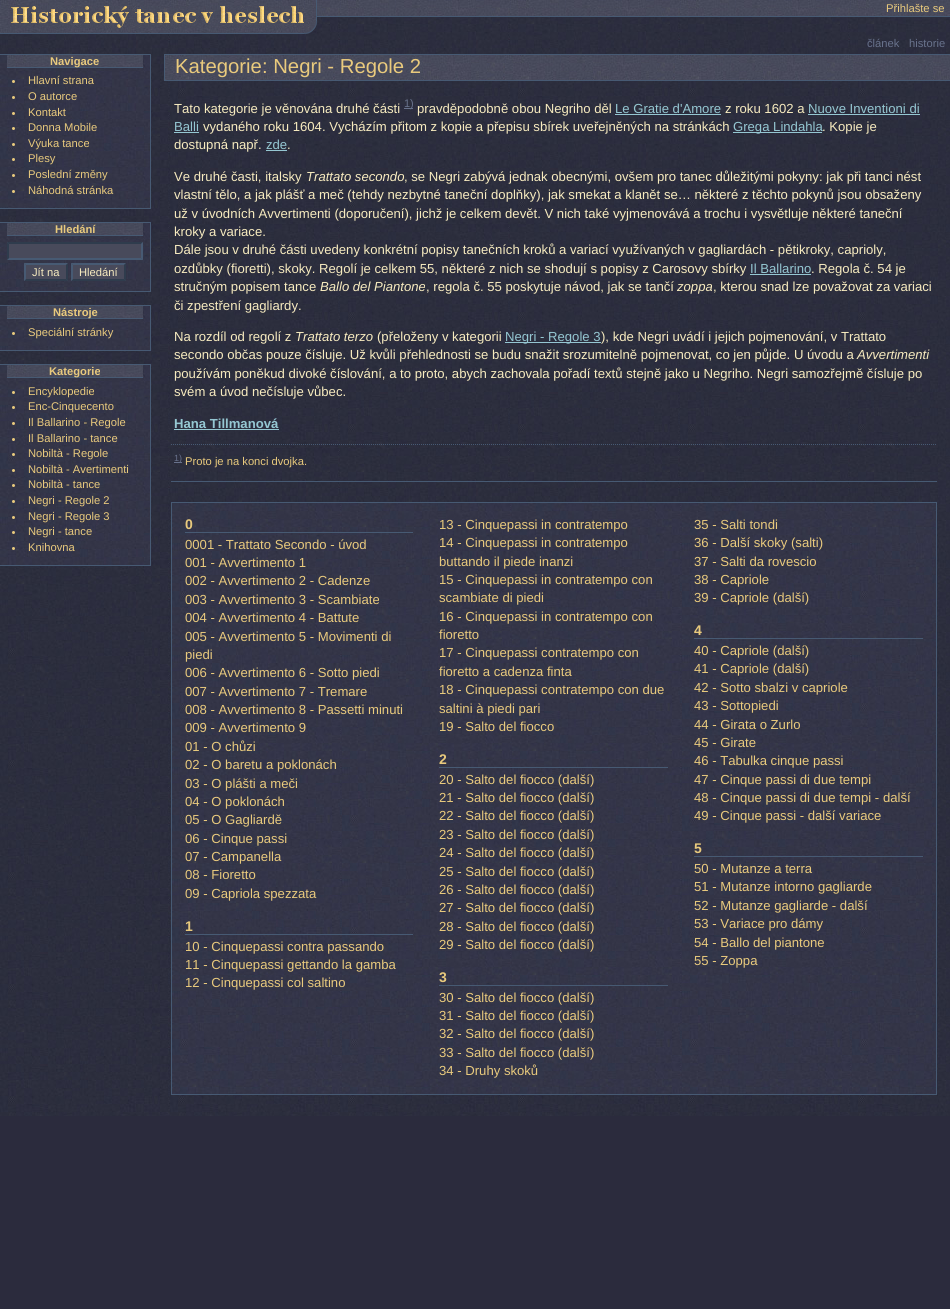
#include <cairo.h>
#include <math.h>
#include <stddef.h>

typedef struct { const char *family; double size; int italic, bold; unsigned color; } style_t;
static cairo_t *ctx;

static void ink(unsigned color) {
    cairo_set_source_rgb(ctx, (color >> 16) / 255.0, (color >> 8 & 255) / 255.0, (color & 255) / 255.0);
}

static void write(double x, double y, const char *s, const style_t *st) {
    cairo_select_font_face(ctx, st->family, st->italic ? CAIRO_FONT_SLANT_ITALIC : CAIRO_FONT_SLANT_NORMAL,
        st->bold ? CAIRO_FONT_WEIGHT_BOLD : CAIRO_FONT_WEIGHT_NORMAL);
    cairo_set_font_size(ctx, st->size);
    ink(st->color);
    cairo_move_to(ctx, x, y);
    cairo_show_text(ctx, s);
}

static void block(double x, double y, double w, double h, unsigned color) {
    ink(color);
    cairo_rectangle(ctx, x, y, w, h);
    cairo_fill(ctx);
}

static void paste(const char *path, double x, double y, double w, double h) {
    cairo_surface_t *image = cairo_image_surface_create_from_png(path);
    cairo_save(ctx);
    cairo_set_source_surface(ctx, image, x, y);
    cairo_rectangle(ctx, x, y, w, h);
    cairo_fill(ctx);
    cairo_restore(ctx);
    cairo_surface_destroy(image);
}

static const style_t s1 = {"Liberation Sans", 11.2, 0, 0, 0xe9ca7d};
static const style_t s2 = {"Liberation Sans", 11.2, 0, 0, 0x68728c};
static const style_t s3 = {"Liberation Sans", 11.2, 0, 1, 0xe9ca7d};
static const style_t s4 = {"Liberation Sans", 11.2, 0, 0, 0xf7ebbf};
static const style_t s5 = {"Liberation Sans", 20.3, 0, 0, 0xe9ca7d};
static const style_t s6 = {"Liberation Sans", 13.12, 0, 0, 0xf7ebbf};
static const style_t s7 = {"Liberation Sans", 11, 0, 0, 0x68728c};
static const style_t s8 = {"Liberation Sans", 13.12, 0, 0, 0x95c7d2};
static const style_t s9 = {"Liberation Sans", 13.12, 1, 0, 0xf7ebbf};
static const style_t s10 = {"Liberation Sans", 13.12, 0, 1, 0x95c7d2};
static const style_t s11 = {"Liberation Sans", 9, 0, 0, 0x68728c};
static const style_t s12 = {"Liberation Sans", 14, 0, 1, 0xe9ca7d};
static const style_t s13 = {"Liberation Sans", 13.12, 0, 0, 0xe9ca7d};

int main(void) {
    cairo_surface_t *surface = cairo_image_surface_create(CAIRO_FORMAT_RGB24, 950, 1309);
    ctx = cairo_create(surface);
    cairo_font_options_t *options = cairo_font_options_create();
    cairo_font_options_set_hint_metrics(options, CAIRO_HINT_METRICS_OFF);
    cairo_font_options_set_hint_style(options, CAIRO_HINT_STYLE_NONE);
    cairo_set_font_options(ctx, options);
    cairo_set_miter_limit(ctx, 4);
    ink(0x2b2b3d);
    cairo_paint(ctx);
    paste("pic1.png", 0, 17, 950, 1099);
    paste("pic2.png", 0, 0, 317, 34);
    paste("pic3.png", 317, 0, 633, 16);
    block(317, 16, 633, 1, 0x475a73);
    write(886, 12, "Přihlašte se", &s1);
    write(867, 47, "článek", &s2);
    write(909, 47, "historie", &s2);
    paste("pic4.png", 0, 55, 150, 153);
    block(0, 54, 151, 1, 0x475a73);
    block(150, 54, 1, 155, 0x475a73);
    block(0, 208, 151, 1, 0x475a73);
    paste("pic5.png", 7, 55, 136, 12);
    block(7, 67, 136, 1, 0x475a73);
    write(50, 65, "Navigace", &s3);
    cairo_new_path(ctx);
    cairo_arc(ctx, 13.5, 81.5, 1.5, 0, 2 * M_PI);
    cairo_fill(ctx);
    write(28, 84, "Hlavní strana", &s1);
    cairo_new_path(ctx);
    cairo_arc(ctx, 13.5, 97.5, 1.5, 0, 2 * M_PI);
    cairo_fill(ctx);
    write(28, 100, "O autorce", &s1);
    cairo_new_path(ctx);
    cairo_arc(ctx, 13.5, 113.5, 1.5, 0, 2 * M_PI);
    cairo_fill(ctx);
    write(28, 116, "Kontakt", &s1);
    cairo_new_path(ctx);
    cairo_arc(ctx, 13.5, 128.5, 1.5, 0, 2 * M_PI);
    cairo_fill(ctx);
    write(28, 131, "Donna Mobile", &s1);
    cairo_new_path(ctx);
    cairo_arc(ctx, 13.5, 144.5, 1.5, 0, 2 * M_PI);
    cairo_fill(ctx);
    write(28, 147, "Výuka tance", &s1);
    cairo_new_path(ctx);
    cairo_arc(ctx, 13.5, 159.5, 1.5, 0, 2 * M_PI);
    cairo_fill(ctx);
    write(28, 162, "Plesy", &s1);
    cairo_new_path(ctx);
    cairo_arc(ctx, 13.5, 175.5, 1.5, 0, 2 * M_PI);
    cairo_fill(ctx);
    write(28, 178, "Poslední změny", &s1);
    cairo_new_path(ctx);
    cairo_arc(ctx, 13.5, 191.5, 1.5, 0, 2 * M_PI);
    cairo_fill(ctx);
    write(28, 194, "Náhodná stránka", &s1);
    paste("pic6.png", 0, 223, 150, 68);
    block(0, 222, 151, 1, 0x475a73);
    block(150, 222, 1, 70, 0x475a73);
    block(0, 291, 151, 1, 0x475a73);
    paste("pic5.png", 7, 223, 136, 12);
    block(7, 235, 136, 1, 0x475a73);
    write(55, 233, "Hledání", &s3);
    block(7, 242, 136, 18, 0x484a5b);
    ink(0x2f3c4d);
    cairo_new_path(ctx);
    cairo_move_to(ctx, 7, 242);
    cairo_line_to(ctx, 143, 242);
    cairo_line_to(ctx, 141, 244);
    cairo_line_to(ctx, 9, 244);
    cairo_close_path(ctx);
    cairo_fill(ctx);
    ink(0x475a73);
    cairo_new_path(ctx);
    cairo_move_to(ctx, 143, 242);
    cairo_line_to(ctx, 143, 260);
    cairo_line_to(ctx, 141, 258);
    cairo_line_to(ctx, 141, 244);
    cairo_close_path(ctx);
    cairo_fill(ctx);
    cairo_new_path(ctx);
    cairo_move_to(ctx, 143, 260);
    cairo_line_to(ctx, 7, 260);
    cairo_line_to(ctx, 9, 258);
    cairo_line_to(ctx, 141, 258);
    cairo_close_path(ctx);
    cairo_fill(ctx);
    ink(0x2f3c4d);
    cairo_new_path(ctx);
    cairo_move_to(ctx, 7, 260);
    cairo_line_to(ctx, 7, 242);
    cairo_line_to(ctx, 9, 244);
    cairo_line_to(ctx, 9, 258);
    cairo_close_path(ctx);
    cairo_fill(ctx);
    block(24, 263, 44, 18, 0x484a5b);
    ink(0x475a73);
    cairo_new_path(ctx);
    cairo_move_to(ctx, 24, 263);
    cairo_line_to(ctx, 68, 263);
    cairo_line_to(ctx, 66, 265);
    cairo_line_to(ctx, 26, 265);
    cairo_close_path(ctx);
    cairo_fill(ctx);
    ink(0x2f3c4d);
    cairo_new_path(ctx);
    cairo_move_to(ctx, 68, 263);
    cairo_line_to(ctx, 68, 281);
    cairo_line_to(ctx, 66, 279);
    cairo_line_to(ctx, 66, 265);
    cairo_close_path(ctx);
    cairo_fill(ctx);
    cairo_new_path(ctx);
    cairo_move_to(ctx, 68, 281);
    cairo_line_to(ctx, 24, 281);
    cairo_line_to(ctx, 26, 279);
    cairo_line_to(ctx, 66, 279);
    cairo_close_path(ctx);
    cairo_fill(ctx);
    ink(0x475a73);
    cairo_new_path(ctx);
    cairo_move_to(ctx, 24, 281);
    cairo_line_to(ctx, 24, 263);
    cairo_line_to(ctx, 26, 265);
    cairo_line_to(ctx, 26, 279);
    cairo_close_path(ctx);
    cairo_fill(ctx);
    write(32, 276, "Jít na", &s4);
    block(71, 263, 55, 18, 0x484a5b);
    ink(0x475a73);
    cairo_new_path(ctx);
    cairo_move_to(ctx, 71, 263);
    cairo_line_to(ctx, 126, 263);
    cairo_line_to(ctx, 124, 265);
    cairo_line_to(ctx, 73, 265);
    cairo_close_path(ctx);
    cairo_fill(ctx);
    ink(0x2f3c4d);
    cairo_new_path(ctx);
    cairo_move_to(ctx, 126, 263);
    cairo_line_to(ctx, 126, 281);
    cairo_line_to(ctx, 124, 279);
    cairo_line_to(ctx, 124, 265);
    cairo_close_path(ctx);
    cairo_fill(ctx);
    cairo_new_path(ctx);
    cairo_move_to(ctx, 126, 281);
    cairo_line_to(ctx, 71, 281);
    cairo_line_to(ctx, 73, 279);
    cairo_line_to(ctx, 124, 279);
    cairo_close_path(ctx);
    cairo_fill(ctx);
    ink(0x475a73);
    cairo_new_path(ctx);
    cairo_move_to(ctx, 71, 281);
    cairo_line_to(ctx, 71, 263);
    cairo_line_to(ctx, 73, 265);
    cairo_line_to(ctx, 73, 279);
    cairo_close_path(ctx);
    cairo_fill(ctx);
    write(79, 276, "Hledání", &s4);
    paste("pic7.png", 0, 306, 150, 44);
    block(0, 305, 151, 1, 0x475a73);
    block(150, 305, 1, 46, 0x475a73);
    block(0, 350, 151, 1, 0x475a73);
    paste("pic5.png", 7, 306, 136, 12);
    block(7, 318, 136, 1, 0x475a73);
    write(53, 316, "Nástroje", &s3);
    cairo_new_path(ctx);
    cairo_arc(ctx, 13.5, 333.5, 1.5, 0, 2 * M_PI);
    cairo_fill(ctx);
    write(28, 336, "Speciální stránky", &s1);
    paste("pic8.png", 0, 365, 150, 200);
    block(0, 364, 151, 1, 0x475a73);
    block(150, 364, 1, 202, 0x475a73);
    block(0, 565, 151, 1, 0x475a73);
    paste("pic5.png", 7, 365, 136, 12);
    block(7, 377, 136, 1, 0x475a73);
    write(49, 375, "Kategorie", &s3);
    cairo_new_path(ctx);
    cairo_arc(ctx, 13.5, 392.5, 1.5, 0, 2 * M_PI);
    cairo_fill(ctx);
    write(28, 395, "Encyklopedie", &s1);
    cairo_new_path(ctx);
    cairo_arc(ctx, 13.5, 407.5, 1.5, 0, 2 * M_PI);
    cairo_fill(ctx);
    write(28, 410, "Enc-Cinquecento", &s1);
    cairo_new_path(ctx);
    cairo_arc(ctx, 13.5, 423.5, 1.5, 0, 2 * M_PI);
    cairo_fill(ctx);
    write(28, 426, "Il Ballarino - Regole", &s1);
    cairo_new_path(ctx);
    cairo_arc(ctx, 13.5, 439.5, 1.5, 0, 2 * M_PI);
    cairo_fill(ctx);
    write(28, 442, "Il Ballarino - tance", &s1);
    cairo_new_path(ctx);
    cairo_arc(ctx, 13.5, 454.5, 1.5, 0, 2 * M_PI);
    cairo_fill(ctx);
    write(28, 457, "Nobiltà - Regole", &s1);
    cairo_new_path(ctx);
    cairo_arc(ctx, 13.5, 470.5, 1.5, 0, 2 * M_PI);
    cairo_fill(ctx);
    write(28, 473, "Nobiltà - Avertimenti", &s1);
    cairo_new_path(ctx);
    cairo_arc(ctx, 13.5, 485.5, 1.5, 0, 2 * M_PI);
    cairo_fill(ctx);
    write(28, 488, "Nobiltà - tance", &s1);
    cairo_new_path(ctx);
    cairo_arc(ctx, 13.5, 501.5, 1.5, 0, 2 * M_PI);
    cairo_fill(ctx);
    write(28, 504, "Negri - Regole 2", &s1);
    cairo_new_path(ctx);
    cairo_arc(ctx, 13.5, 517.5, 1.5, 0, 2 * M_PI);
    cairo_fill(ctx);
    write(28, 520, "Negri - Regole 3", &s1);
    cairo_new_path(ctx);
    cairo_arc(ctx, 13.5, 532.5, 1.5, 0, 2 * M_PI);
    cairo_fill(ctx);
    write(28, 535, "Negri - tance", &s1);
    cairo_new_path(ctx);
    cairo_arc(ctx, 13.5, 548.5, 1.5, 0, 2 * M_PI);
    cairo_fill(ctx);
    write(28, 551, "Knihovna", &s1);
    paste("pic9.png", 165, 55, 785, 25);
    block(164, 54, 786, 1, 0x475a73);
    block(164, 80, 786, 1, 0x475a73);
    block(164, 54, 1, 27, 0x475a73);
    write(175, 73, "Kategorie: Negri - Regole 2", &s5);
    block(171, 481, 766, 1, 0x475a73);
    write(174, 113, "Tato kategorie je věnována druhé části", &s6);
    block(404, 108, 9, 1, 0x68728c);
    write(404, 107, "1)", &s7);
    write(417, 113, "pravděpodobně obou Negriho děl", &s6);
    write(615, 113, "Le Gratie d'Amore", &s8);
    block(615, 114, 106, 1, 0x95c7d2);
    write(725, 113, "z roku 1602 a", &s6);
    write(808, 113, "Nuove Inventioni di", &s8);
    block(808, 114, 112, 1, 0x95c7d2);
    write(174, 131, "Balli", &s8);
    block(174, 132, 25, 1, 0x95c7d2);
    write(203, 131, "vydaného roku 1604. Vycházím přitom z kopie a přepisu sbírek uveřejněných na stránkách", &s6);
    block(733, 132, 89, 1, 0x95c7d2);
    write(733, 131, "Grega Lindahla", &s8);
    write(822, 131, ". Kopie je", &s6);
    write(174, 149, "dostupná např.", &s6);
    write(266, 149, "zde", &s8);
    block(266, 150, 21, 1, 0x95c7d2);
    write(287, 149, ".", &s6);
    write(174, 181, "Ve druhé časti, italsky", &s6);
    write(306, 181, "Trattato secondo", &s9);
    write(404, 181, ", se Negri zabývá jednak obecnými, ovšem pro tanec důležitými pokyny: jak při tanci nést", &s6);
    write(174, 199, "vlastní tělo, a jak plášť a meč (tehdy nezbytné taneční doplňky), jak smekat a klanět se… některé z těchto pokynů jsou obsaženy", &s6);
    write(174, 218, "už v úvodních Avvertimenti (doporučení), jichž je celkem devět. V nich také vyjmenovává a trochu i vysvětluje některé taneční", &s6);
    write(174, 236, "kroky a variace.", &s6);
    write(174, 254, "Dále jsou v druhé části uvedeny konkrétní popisy tanečních kroků a variací využívaných v gagliardách - pětikroky, caprioly,", &s6);
    write(174, 273, "ozdůbky (fioretti), skoky. Regolí je celkem 55, některé z nich se shodují s popisy z Carosovy sbírky", &s6);
    write(750, 273, "Il Ballarino", &s8);
    block(750, 274, 61, 1, 0x95c7d2);
    write(811, 273, ". Regola č. 54 je", &s6);
    write(174, 291, "stručným popisem tance", &s6);
    write(320, 291, "Ballo del Piantone", &s9);
    write(426, 291, ", regola č. 55 poskytuje návod, jak se tančí", &s6);
    write(677, 291, "zoppa", &s9);
    write(713, 291, ", kterou snad lze považovat za variaci", &s6);
    write(174, 310, "či zpestření gagliardy.", &s6);
    write(174, 341, "Na rozdíl od regolí z", &s6);
    write(295, 341, "Trattato terzo", &s9);
    write(377, 341, "(přeloženy v kategorii", &s6);
    block(505, 342, 96, 1, 0x95c7d2);
    write(505, 341, "Negri - Regole 3", &s8);
    write(601, 341, "), kde Negri uvádí i jejich pojmenování, v Trattato", &s6);
    write(174, 359, "secondo občas pouze čísluje. Už kvůli přehlednosti se budu snažit srozumitelně pojmenovat, co jen půjde. U úvodu a", &s6);
    write(857, 359, "Avvertimenti", &s9);
    write(174, 378, "používám poněkud divoké číslování, a to proto, abych zachovala pořadí textů stejně jako u Negriho. Negri samozřejmě čísluje po", &s6);
    write(174, 396, "svém a úvod nečísluje vůbec.", &s6);
    write(174, 428, "Hana Tillmanová", &s10);
    block(174, 429, 105, 1, 0x95c7d2);
    cairo_new_path(ctx);
    cairo_move_to(ctx, 171, 444.5);
    cairo_line_to(ctx, 937, 444.5);
    ink(0x475a73);
    cairo_set_line_width(ctx, 1);
    cairo_set_dash(ctx, (double[]){1, 1}, 2, 0);
    cairo_stroke(ctx);
    block(174, 462, 8, 1, 0x68728c);
    write(174, 461, "1)", &s11);
    write(185, 465, "Proto je na konci dvojka.", &s1);
    paste("pic10.png", 172, 503, 764, 591);
    cairo_rectangle(ctx, 171.5, 502.5, 765, 592);
    ink(0x475a73);
    cairo_set_dash(ctx, NULL, 0, 0);
    cairo_stroke(ctx);
    block(185, 532, 228, 1, 0x475a73);
    write(185, 529, "0", &s12);
    write(185, 549, "0001 - Trattato Secondo - úvod", &s13);
    write(185, 567, "001 - Avvertimento 1", &s13);
    write(185, 585, "002 - Avvertimento 2 - Cadenze", &s13);
    write(185, 604, "003 - Avvertimento 3 - Scambiate", &s13);
    write(185, 622, "004 - Avvertimento 4 - Battute", &s13);
    write(185, 641, "005 - Avvertimento 5 - Movimenti di", &s13);
    write(185, 659, "piedi", &s13);
    write(185, 677, "006 - Avvertimento 6 - Sotto piedi", &s13);
    write(185, 696, "007 - Avvertimento 7 - Tremare", &s13);
    write(185, 714, "008 - Avvertimento 8 - Passetti minuti", &s13);
    write(185, 732, "009 - Avvertimento 9", &s13);
    write(185, 751, "01 - O chůzi", &s13);
    write(185, 769, "02 - O baretu a poklonách", &s13);
    write(185, 788, "03 - O plášti a meči", &s13);
    write(185, 806, "04 - O poklonách", &s13);
    write(185, 824, "05 - O Gagliardě", &s13);
    write(185, 843, "06 - Cinque passi", &s13);
    write(185, 861, "07 - Campanella", &s13);
    write(185, 879, "08 - Fioretto", &s13);
    write(185, 898, "09 - Capriola spezzata", &s13);
    block(185, 934, 228, 1, 0x475a73);
    write(185, 931, "1", &s12);
    write(185, 951, "10 - Cinquepassi contra passando", &s13);
    write(185, 969, "11 - Cinquepassi gettando la gamba", &s13);
    write(185, 987, "12 - Cinquepassi col saltino", &s13);
    write(439, 529, "13 - Cinquepassi in contratempo", &s13);
    write(439, 547, "14 - Cinquepassi in contratempo", &s13);
    write(439, 566, "buttando il piede inanzi", &s13);
    write(439, 584, "15 - Cinquepassi in contratempo con", &s13);
    write(439, 602, "scambiate di piedi", &s13);
    write(439, 621, "16 - Cinquepassi in contratempo con", &s13);
    write(439, 639, "fioretto", &s13);
    write(439, 657, "17 - Cinquepassi contratempo con", &s13);
    write(439, 676, "fioretto a cadenza finta", &s13);
    write(439, 694, "18 - Cinquepassi contratempo con due", &s13);
    write(439, 713, "saltini à piedi pari", &s13);
    write(439, 731, "19 - Salto del fiocco", &s13);
    block(439, 767, 229, 1, 0x475a73);
    write(439, 764, "2", &s12);
    write(439, 784, "20 - Salto del fiocco (další)", &s13);
    write(439, 802, "21 - Salto del fiocco (další)", &s13);
    write(439, 820, "22 - Salto del fiocco (další)", &s13);
    write(439, 839, "23 - Salto del fiocco (další)", &s13);
    write(439, 857, "24 - Salto del fiocco (další)", &s13);
    write(439, 876, "25 - Salto del fiocco (další)", &s13);
    write(439, 894, "26 - Salto del fiocco (další)", &s13);
    write(439, 912, "27 - Salto del fiocco (další)", &s13);
    write(439, 931, "28 - Salto del fiocco (další)", &s13);
    write(439, 949, "29 - Salto del fiocco (další)", &s13);
    block(439, 985, 229, 1, 0x475a73);
    write(439, 982, "3", &s12);
    write(439, 1002, "30 - Salto del fiocco (další)", &s13);
    write(439, 1020, "31 - Salto del fiocco (další)", &s13);
    write(439, 1038, "32 - Salto del fiocco (další)", &s13);
    write(439, 1057, "33 - Salto del fiocco (další)", &s13);
    write(439, 1075, "34 - Druhy skoků", &s13);
    write(694, 529, "35 - Salti tondi", &s13);
    write(694, 547, "36 - Další skoky (salti)", &s13);
    write(694, 566, "37 - Salti da rovescio", &s13);
    write(694, 584, "38 - Capriole", &s13);
    write(694, 602, "39 - Capriole (další)", &s13);
    block(694, 638, 229, 1, 0x475a73);
    write(694, 635, "4", &s12);
    write(694, 655, "40 - Capriole (další)", &s13);
    write(694, 673, "41 - Capriole (další)", &s13);
    write(694, 692, "42 - Sotto sbalzi v capriole", &s13);
    write(694, 710, "43 - Sottopiedi", &s13);
    write(694, 729, "44 - Girata o Zurlo", &s13);
    write(694, 747, "45 - Girate", &s13);
    write(694, 765, "46 - Tabulka cinque passi", &s13);
    write(694, 784, "47 - Cinque passi di due tempi", &s13);
    write(694, 802, "48 - Cinque passi di due tempi - další", &s13);
    write(694, 820, "49 - Cinque passi - další variace", &s13);
    block(694, 856, 229, 1, 0x475a73);
    write(694, 853, "5", &s12);
    write(694, 873, "50 - Mutanze a terra", &s13);
    write(694, 891, "51 - Mutanze intorno gagliarde", &s13);
    write(694, 910, "52 - Mutanze gagliarde - další", &s13);
    write(694, 928, "53 - Variace pro dámy", &s13);
    write(694, 947, "54 - Ballo del piantone", &s13);
    write(694, 965, "55 - Zoppa", &s13);
    cairo_surface_write_to_png(surface, "screenshot.png");
    cairo_font_options_destroy(options);
    cairo_destroy(ctx);
    cairo_surface_destroy(surface);
    return 0;
}
